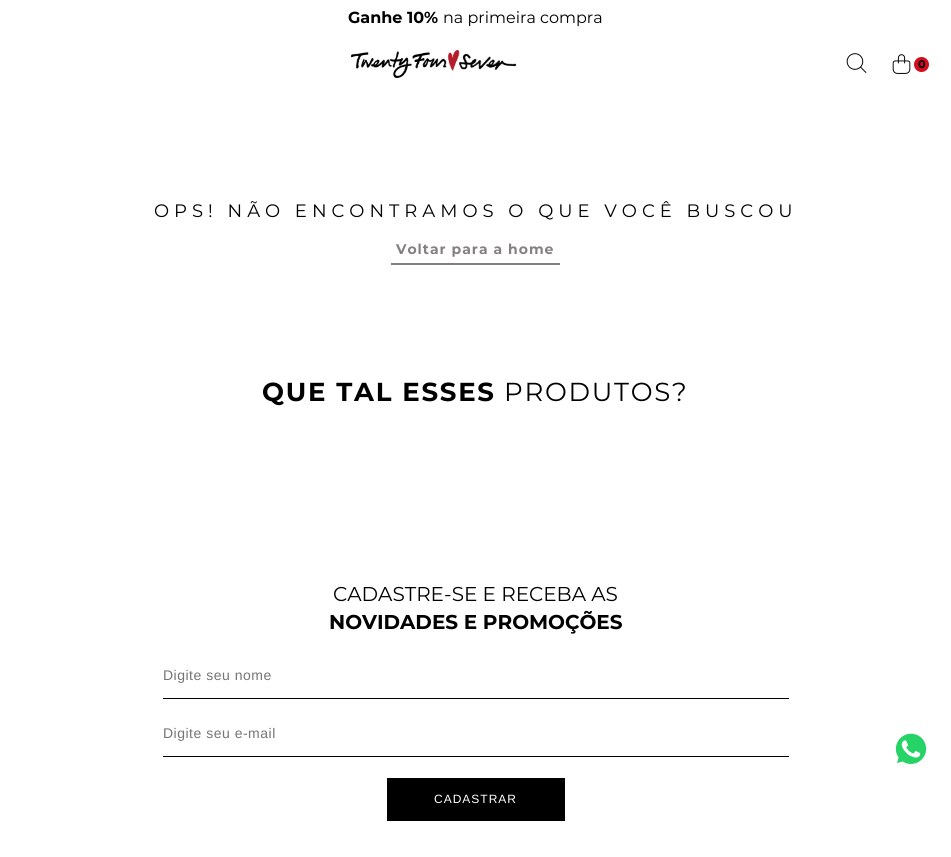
#include <cairo.h>
#include <math.h>
#include <stddef.h>

typedef struct { const char *family; double size; int italic, bold; unsigned color; } style_t;
static cairo_t *ctx;

static void ink(unsigned color) {
    cairo_set_source_rgb(ctx, (color >> 16) / 255.0, (color >> 8 & 255) / 255.0, (color & 255) / 255.0);
}

static void write(double x, double y, const char *s, const style_t *st) {
    cairo_select_font_face(ctx, st->family, st->italic ? CAIRO_FONT_SLANT_ITALIC : CAIRO_FONT_SLANT_NORMAL,
        st->bold ? CAIRO_FONT_WEIGHT_BOLD : CAIRO_FONT_WEIGHT_NORMAL);
    cairo_set_font_size(ctx, st->size);
    ink(st->color);
    cairo_move_to(ctx, x, y);
    cairo_show_text(ctx, s);
}

static void write_spaced(double x, double y, const char *s, double letter, double word) {
    cairo_move_to(ctx, x, y);
    while (*s) {
        char ch[5] = {0};
        int n = 0;
        do ch[n++] = *s++; while ((*s & 0xC0) == 0x80);
        cairo_show_text(ctx, ch);
        cairo_rel_move_to(ctx, letter + word * (*ch == ' '), 0);
    }
}

static void block(double x, double y, double w, double h, unsigned color) {
    ink(color);
    cairo_rectangle(ctx, x, y, w, h);
    cairo_fill(ctx);
}

static void paste(const char *path, double x, double y, double w, double h) {
    cairo_surface_t *image = cairo_image_surface_create_from_png(path);
    cairo_save(ctx);
    cairo_set_source_surface(ctx, image, x, y);
    cairo_rectangle(ctx, x, y, w, h);
    cairo_fill(ctx);
    cairo_restore(ctx);
    cairo_surface_destroy(image);
}

static const style_t s1 = {"Montserrat", 16, 0, 1, 0x000000};
static const style_t s2 = {"Montserrat", 16, 0, 0, 0x000000};
static const style_t s3 = {"Montserrat", 11, 0, 1, 0x000000};
static const style_t s4 = {"Montserrat", 20, 0, 0, 0x000000};
static const style_t s5 = {"Montserrat", 20, 0, 1, 0x000000};

int main(void) {
    cairo_surface_t *surface = cairo_image_surface_create(CAIRO_FORMAT_RGB24, 951, 857);
    ctx = cairo_create(surface);
    cairo_font_options_t *options = cairo_font_options_create();
    cairo_font_options_set_hint_metrics(options, CAIRO_HINT_METRICS_OFF);
    cairo_font_options_set_hint_style(options, CAIRO_HINT_STYLE_NONE);
    cairo_set_font_options(ctx, options);
    cairo_set_miter_limit(ctx, 4);
    ink(0xffffff);
    cairo_paint(ctx);
    write(348, 23, "Ganhe 10%", &s1);
    write(443, 23, "na primeira compra", &s2);
    paste("pic1.png", 351, 50, 166, 28);
    paste("pic2.png", 846, 53, 21, 20);
    paste("pic3.png", 892, 54, 19, 20);
    ink(0xd30c1f);
    cairo_arc(ctx, 921.5, 64.5, 7.5, 0, 2 * M_PI);
    cairo_fill(ctx);
    write(918, 68, "0", &s3);
    cairo_select_font_face(ctx, "Montserrat", CAIRO_FONT_SLANT_NORMAL, CAIRO_FONT_WEIGHT_NORMAL);
    cairo_set_font_size(ctx, 18);
    write_spaced(154, 217, "OPS! NÃO ENCONTRAMOS O QUE VOCÊ BUSCOU", 5, 0);
    block(391, 263, 169, 2, 0x848080);
    cairo_select_font_face(ctx, "Montserrat", CAIRO_FONT_SLANT_NORMAL, CAIRO_FONT_WEIGHT_BOLD);
    cairo_set_font_size(ctx, 14);
    write_spaced(396, 254, "Voltar para a home", 1, 0);
    cairo_set_font_size(ctx, 26);
    ink(0x000000);
    write_spaced(262, 401, "QUE TAL ESSES", 1.75, 0);
    cairo_select_font_face(ctx, "Montserrat", CAIRO_FONT_SLANT_NORMAL, CAIRO_FONT_WEIGHT_NORMAL);
    write_spaced(504, 401, "PRODUTOS?", 1.75, 0);
    write(333, 601, "CADASTRE-SE E RECEBA AS", &s4);
    write(329, 629, "NOVIDADES E PROMOÇÕES", &s5);
    block(162, 698, 627, 1, 0x000000);
    block(162, 698, 1, 1, 0xffffff);
    cairo_select_font_face(ctx, "Liberation Sans", CAIRO_FONT_SLANT_NORMAL, CAIRO_FONT_WEIGHT_NORMAL);
    cairo_set_font_size(ctx, 14);
    ink(0x757575);
    write_spaced(163, 680, "Digite seu nome", 0.5, 0);
    block(162, 756, 627, 1, 0x000000);
    block(162, 756, 1, 1, 0xffffff);
    ink(0x757575);
    write_spaced(163, 738, "Digite seu e-mail", 0.5, 0);
    block(387, 778, 178, 43, 0x000000);
    cairo_set_font_size(ctx, 12);
    ink(0xffffff);
    write_spaced(434, 803, "CADASTRAR", 1, 0);
    paste("pic4.png", 895, 733, 32, 31);
    cairo_surface_write_to_png(surface, "screenshot.png");
    cairo_font_options_destroy(options);
    cairo_destroy(ctx);
    cairo_surface_destroy(surface);
    return 0;
}
